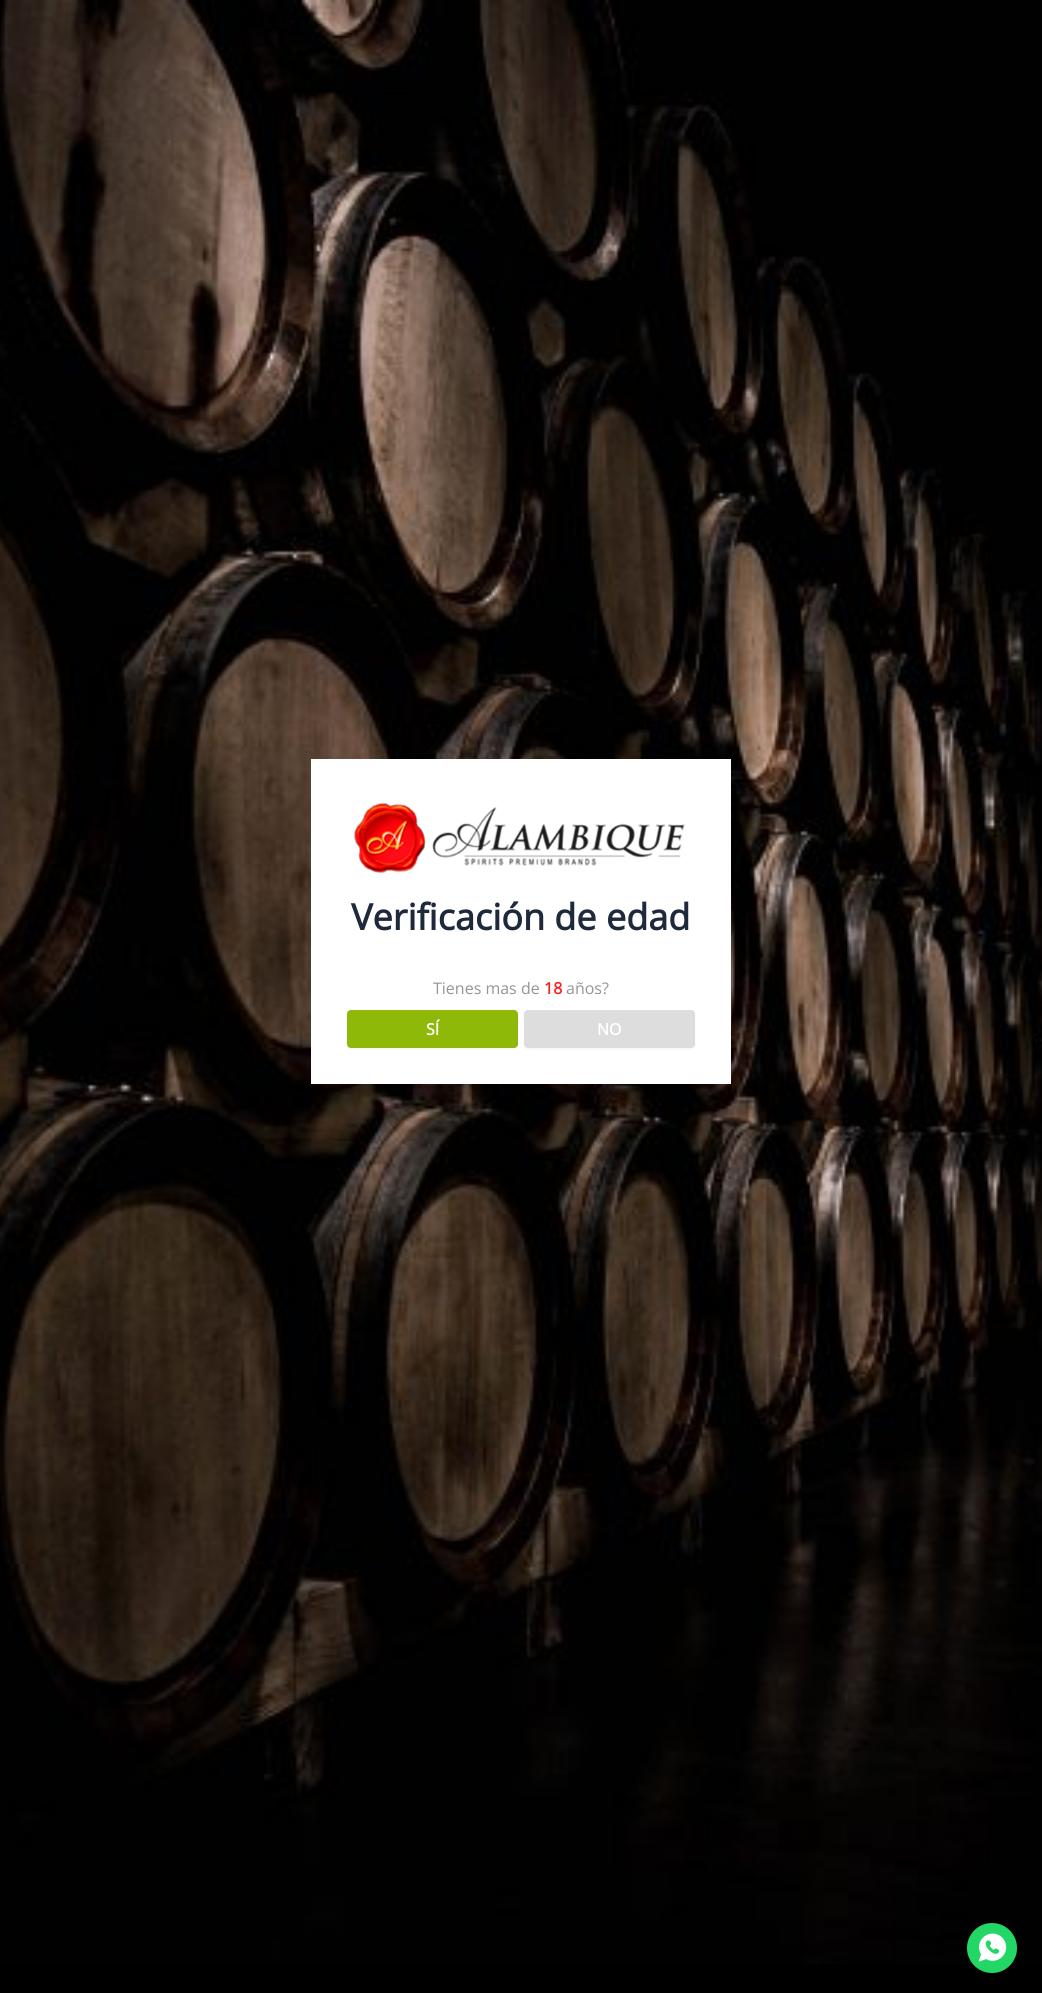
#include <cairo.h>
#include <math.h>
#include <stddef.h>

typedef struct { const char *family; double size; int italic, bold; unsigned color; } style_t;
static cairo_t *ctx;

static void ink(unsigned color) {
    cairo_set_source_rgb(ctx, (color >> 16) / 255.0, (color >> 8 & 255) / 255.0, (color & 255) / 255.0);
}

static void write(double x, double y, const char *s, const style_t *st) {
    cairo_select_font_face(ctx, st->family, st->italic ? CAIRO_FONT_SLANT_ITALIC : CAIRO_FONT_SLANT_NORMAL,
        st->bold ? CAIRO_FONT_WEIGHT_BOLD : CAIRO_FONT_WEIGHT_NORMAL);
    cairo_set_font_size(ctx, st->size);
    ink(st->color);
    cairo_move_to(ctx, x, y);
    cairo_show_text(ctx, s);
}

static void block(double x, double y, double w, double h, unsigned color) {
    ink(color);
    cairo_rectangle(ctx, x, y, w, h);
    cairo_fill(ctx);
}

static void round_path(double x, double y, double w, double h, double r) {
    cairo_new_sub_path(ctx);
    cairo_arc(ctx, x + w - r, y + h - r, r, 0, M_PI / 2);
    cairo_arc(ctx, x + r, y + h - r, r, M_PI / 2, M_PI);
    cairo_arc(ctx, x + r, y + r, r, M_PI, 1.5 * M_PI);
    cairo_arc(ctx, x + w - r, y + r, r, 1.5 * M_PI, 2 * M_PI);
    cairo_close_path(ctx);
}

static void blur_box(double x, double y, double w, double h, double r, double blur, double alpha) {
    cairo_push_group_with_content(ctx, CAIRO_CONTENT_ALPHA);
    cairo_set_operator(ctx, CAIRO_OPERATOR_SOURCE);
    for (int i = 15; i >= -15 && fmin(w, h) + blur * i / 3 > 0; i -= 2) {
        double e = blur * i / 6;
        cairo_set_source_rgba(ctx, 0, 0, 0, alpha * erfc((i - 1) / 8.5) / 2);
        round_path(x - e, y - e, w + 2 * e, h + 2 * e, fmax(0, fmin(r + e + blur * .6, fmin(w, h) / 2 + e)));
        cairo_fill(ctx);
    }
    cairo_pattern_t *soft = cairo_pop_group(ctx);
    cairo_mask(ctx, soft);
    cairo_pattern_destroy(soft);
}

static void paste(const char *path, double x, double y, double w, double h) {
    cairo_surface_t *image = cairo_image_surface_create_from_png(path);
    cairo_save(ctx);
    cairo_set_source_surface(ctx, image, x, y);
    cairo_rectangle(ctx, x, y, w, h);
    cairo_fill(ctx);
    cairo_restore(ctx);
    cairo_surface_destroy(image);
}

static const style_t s1 = {"Open Sans", 36, 0, 1, 0x1e293b};
static const style_t s2 = {"Open Sans", 16, 0, 0, 0x959595};
static const style_t s3 = {"Open Sans", 16, 0, 1, 0xff1f1f};
static const style_t s4 = {"Open Sans", 16, 0, 1, 0xffffff};

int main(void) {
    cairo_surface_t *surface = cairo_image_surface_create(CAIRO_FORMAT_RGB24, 1042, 1993);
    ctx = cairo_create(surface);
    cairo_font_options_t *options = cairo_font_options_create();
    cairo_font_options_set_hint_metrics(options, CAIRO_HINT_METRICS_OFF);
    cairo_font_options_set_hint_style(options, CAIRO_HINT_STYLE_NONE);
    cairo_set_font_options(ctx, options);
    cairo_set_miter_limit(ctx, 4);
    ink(0x000000);
    cairo_paint(ctx);
    paste("pic1.png", 0, 0, 1042, 1964);
    block(311, 759, 420, 325, 0xffffff);
    paste("pic2.png", 354, 802, 331, 71);
    write(351, 930, "Verificación de edad", &s1);
    write(433, 994, "Tienes mas de", &s2);
    write(544, 994, "18", &s3);
    write(566, 994, "años?", &s2);
    ink(0x000000);
    blur_box(347, 1011, 171, 38, 4, 1, 0.05);
    ink(0x8eb908);
    round_path(347, 1010, 171, 38, 4);
    cairo_fill(ctx);
    write(426, 1035, "SÍ", &s4);
    ink(0x000000);
    blur_box(524, 1011, 171, 38, 4, 1, 0.05);
    ink(0xdddddd);
    round_path(524, 1010, 171, 38, 4);
    cairo_fill(ctx);
    write(597, 1035, "NO", &s4);
    paste("pic3.png", 967, 1923, 50, 50);
    cairo_surface_write_to_png(surface, "screenshot.png");
    cairo_font_options_destroy(options);
    cairo_destroy(ctx);
    cairo_surface_destroy(surface);
    return 0;
}
